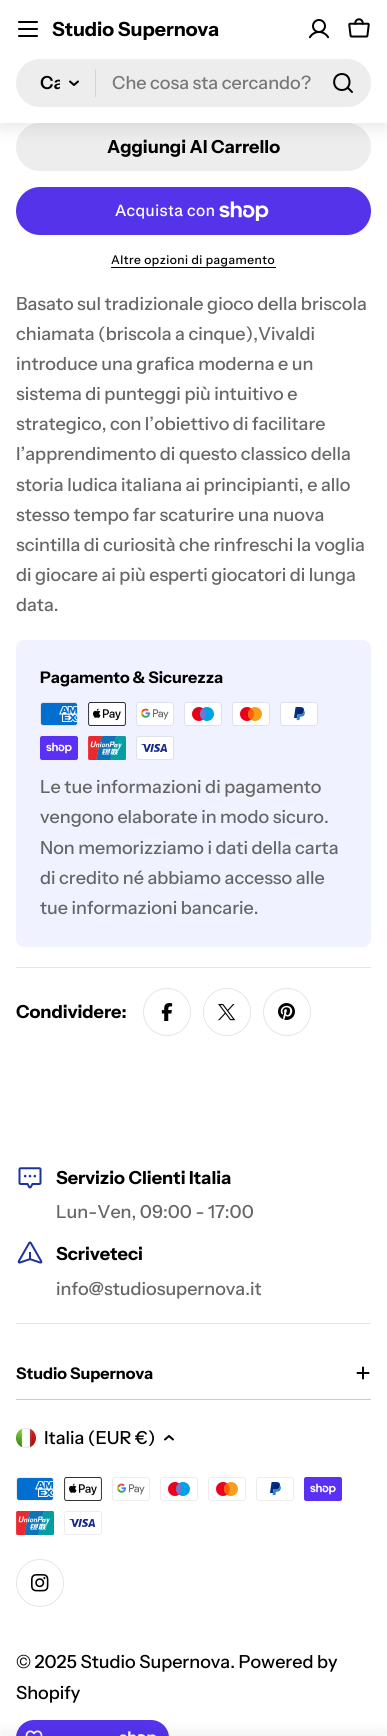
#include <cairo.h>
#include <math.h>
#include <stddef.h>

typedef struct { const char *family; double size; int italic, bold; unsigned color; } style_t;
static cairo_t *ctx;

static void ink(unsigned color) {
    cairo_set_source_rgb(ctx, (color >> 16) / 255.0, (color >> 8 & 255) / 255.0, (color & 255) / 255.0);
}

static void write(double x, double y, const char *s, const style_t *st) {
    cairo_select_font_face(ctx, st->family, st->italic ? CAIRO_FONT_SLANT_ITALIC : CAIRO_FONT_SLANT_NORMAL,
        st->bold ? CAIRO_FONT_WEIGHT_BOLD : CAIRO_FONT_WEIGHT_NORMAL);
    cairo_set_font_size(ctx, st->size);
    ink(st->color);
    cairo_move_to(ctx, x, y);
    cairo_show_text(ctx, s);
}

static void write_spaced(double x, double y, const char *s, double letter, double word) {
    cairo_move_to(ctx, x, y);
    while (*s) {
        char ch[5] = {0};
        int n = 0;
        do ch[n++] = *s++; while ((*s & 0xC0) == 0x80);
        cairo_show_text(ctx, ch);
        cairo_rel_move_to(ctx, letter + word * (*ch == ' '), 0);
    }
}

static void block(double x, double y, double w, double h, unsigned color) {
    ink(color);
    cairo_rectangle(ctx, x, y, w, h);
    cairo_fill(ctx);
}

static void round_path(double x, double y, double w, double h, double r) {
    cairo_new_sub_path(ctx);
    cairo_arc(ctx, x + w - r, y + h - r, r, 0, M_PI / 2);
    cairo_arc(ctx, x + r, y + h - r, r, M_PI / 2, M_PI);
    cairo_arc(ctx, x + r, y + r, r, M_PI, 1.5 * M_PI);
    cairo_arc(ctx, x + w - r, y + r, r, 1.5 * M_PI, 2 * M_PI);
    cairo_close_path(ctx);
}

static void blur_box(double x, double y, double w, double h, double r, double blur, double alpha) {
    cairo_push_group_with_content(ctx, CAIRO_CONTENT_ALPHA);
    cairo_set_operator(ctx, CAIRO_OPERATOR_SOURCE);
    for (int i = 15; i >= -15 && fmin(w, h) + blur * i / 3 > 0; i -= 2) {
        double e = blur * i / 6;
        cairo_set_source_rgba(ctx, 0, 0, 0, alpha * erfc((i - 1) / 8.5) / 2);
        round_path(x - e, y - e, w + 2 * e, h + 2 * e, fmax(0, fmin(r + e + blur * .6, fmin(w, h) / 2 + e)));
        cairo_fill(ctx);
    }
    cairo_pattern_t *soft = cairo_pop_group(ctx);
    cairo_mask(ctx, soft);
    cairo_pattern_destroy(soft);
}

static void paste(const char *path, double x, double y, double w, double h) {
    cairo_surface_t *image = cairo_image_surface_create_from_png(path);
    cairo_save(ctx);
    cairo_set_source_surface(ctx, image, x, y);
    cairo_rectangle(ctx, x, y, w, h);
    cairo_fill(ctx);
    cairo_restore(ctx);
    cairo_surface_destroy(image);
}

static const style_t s1 = {"Instrument Sans", 19.5, 0, 1, 0x000000};
static const style_t s2 = {"Instrument Sans SemiBold", 18, 0, 0, 0x000000};
static const style_t s3 = {"Instrument Sans Medium", 18, 0, 0, 0x777777};
static const style_t s4 = {"Instrument Sans", 18, 0, 1, 0x000000};
static const style_t s5 = {"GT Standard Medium", 16, 0, 0, 0xffffff};
static const style_t s6 = {"Instrument Sans Medium", 18, 0, 0, 0x666666};
static const style_t s7 = {"Instrument Sans", 16, 0, 1, 0x000000};
static const style_t s8 = {"Instrument Sans Medium", 18, 0, 0, 0x000000};

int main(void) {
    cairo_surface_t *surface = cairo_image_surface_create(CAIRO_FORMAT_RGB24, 387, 1736);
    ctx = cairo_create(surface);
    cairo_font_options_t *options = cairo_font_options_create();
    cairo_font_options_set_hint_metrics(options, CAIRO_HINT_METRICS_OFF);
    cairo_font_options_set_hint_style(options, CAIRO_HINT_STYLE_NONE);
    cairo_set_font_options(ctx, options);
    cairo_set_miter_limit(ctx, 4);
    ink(0xffffff);
    cairo_paint(ctx);
    ink(0xededed);
    round_path(16.5, 123.5, 354, 47, 23.5);
    cairo_fill_preserve(ctx);
    cairo_set_line_width(ctx, 1);
    cairo_stroke(ctx);
    ink(0x000000);
    blur_box(0, 4, 387, 123, 0, 9, 0.1);
    block(0, 0, 387, 123, 0xffffff);
    ink(0x000000);
    round_path(18, 28, 20, 2, 1);
    cairo_fill(ctx);
    round_path(18, 21, 20, 2, 1);
    cairo_fill(ctx);
    round_path(18, 35, 20, 2, 1);
    cairo_fill(ctx);
    write(52, 36, "Studio Supernova", &s1);
    paste("pic1.png", 308, 19, 22, 20);
    paste("pic2.png", 348, 18, 22, 20);
    ink(0xededed);
    round_path(16, 59, 355, 48, 24);
    cairo_fill(ctx);
    cairo_save(ctx);
    cairo_rectangle(ctx, 40, 59, 20, 48);
    cairo_clip(ctx);
    write(40, 89, "Ca", &s2);
    cairo_restore(ctx);
    cairo_new_path(ctx);
    cairo_move_to(ctx, 78, 81.5);
    cairo_line_to(ctx, 74, 85);
    cairo_line_to(ctx, 70, 81.5);
    ink(0x000000);
    cairo_set_line_width(ctx, 2);
    cairo_set_line_cap(ctx, CAIRO_LINE_CAP_ROUND);
    cairo_set_line_join(ctx, CAIRO_LINE_JOIN_ROUND);
    cairo_stroke(ctx);
    block(95, 69, 1, 28, 0xd5d5d5);
    write(112, 89, "Che cosa sta cercando?", &s3);
    cairo_new_path(ctx);
    cairo_move_to(ctx, 342, 90);
    cairo_curve_to(ctx, 352, 90, 352, 74, 342, 74);
    cairo_curve_to(ctx, 331.5, 74, 331.5, 90, 342, 90);
    cairo_close_path(ctx);
    cairo_move_to(ctx, 347.5, 87.5);
    cairo_line_to(ctx, 352, 92);
    ink(0x000000);
    cairo_stroke(ctx);
    write(107, 153, "Aggiungi Al Carrello", &s4);
    ink(0x5433eb);
    round_path(16, 187, 355, 48, 24);
    cairo_fill(ctx);
    write(115, 216, "Acquista con", &s5);
    paste("pic3.png", 219, 201, 50, 20);
    cairo_select_font_face(ctx, "Instrument Sans Medium", CAIRO_FONT_SLANT_NORMAL, CAIRO_FONT_WEIGHT_NORMAL);
    cairo_set_font_size(ctx, 12);
    ink(0x000000);
    write_spaced(111, 264, "Altre opzioni di pagamento", 0.5, 0);
    block(111, 267, 165, 1, 0x000000);
    write(16, 310, "Basato sul tradizionale gioco della briscola", &s6);
    write(16, 340, "chiamata (briscola a cinque),Vivaldi", &s6);
    write(16, 370, "introduce una grafica moderna e un", &s6);
    write(16, 400, "sistema di punteggi più intuitivo e", &s6);
    write(16, 430, "strategico, con l’obiettivo di facilitare", &s6);
    write(16, 460, "l’apprendimento di questo classico della", &s6);
    write(16, 491, "storia ludica italiana ai principianti, e allo", &s6);
    write(16, 521, "stesso tempo far scaturire una nuova", &s6);
    write(16, 551, "scintilla di curiosità che rinfreschi la voglia", &s6);
    write(16, 581, "di giocare ai più esperti giocatori di lunga", &s6);
    write(16, 611, "data.", &s6);
    ink(0xf0f2ff);
    round_path(16, 640, 355, 307, 8);
    cairo_fill(ctx);
    write(40, 683, "Pagamento & Sicurezza", &s7);
    paste("pic4.png", 40, 702, 38, 24);
    paste("pic5.png", 88, 702, 38, 24);
    paste("pic6.png", 136, 702, 38, 24);
    paste("pic7.png", 184, 702, 38, 24);
    paste("pic8.png", 232, 702, 38, 24);
    paste("pic9.png", 280, 702, 38, 24);
    paste("pic10.png", 40, 736, 38, 24);
    paste("pic11.png", 88, 736, 38, 24);
    paste("pic12.png", 136, 736, 38, 24);
    write(40, 793, "Le tue informazioni di pagamento", &s6);
    write(40, 823, "vengono elaborate in modo sicuro.", &s6);
    write(40, 854, "Non memorizziamo i dati della carta", &s6);
    write(40, 884, "di credito né abbiamo accesso alle", &s6);
    write(40, 914, "tue informazioni bancarie.", &s6);
    block(16, 967, 355, 1, 0xe5e5e5);
    write(16, 1018, "Condividere:", &s4);
    cairo_new_path(ctx);
    cairo_arc(ctx, 167, 1012, 23.5, 0, 2 * M_PI);
    ink(0xe5e5e5);
    cairo_set_line_width(ctx, 1);
    cairo_set_line_cap(ctx, CAIRO_LINE_CAP_BUTT);
    cairo_set_line_join(ctx, CAIRO_LINE_JOIN_MITER);
    cairo_stroke(ctx);
    paste("pic13.png", 161, 1003, 12, 18);
    cairo_arc(ctx, 227, 1012, 23.5, 0, 2 * M_PI);
    cairo_stroke(ctx);
    paste("pic14.png", 218, 1004, 18, 17);
    cairo_arc(ctx, 287, 1012, 23.5, 0, 2 * M_PI);
    cairo_stroke(ctx);
    paste("pic15.png", 278, 1003, 17, 17);
    ink(0x5433eb);
    round_path(16, 1720, 153, 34, 18);
    cairo_fill(ctx);
    paste("pic29.png", 25, 1730, 18, 6);
    paste("pic30.png", 119, 1731, 37, 5);
    ink(0x000000);
    blur_box(0, 1730, 387, 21, 0, 5, 0.05);
    paste("pic16.png", 18, 1167, 24, 22);
    write(56, 1184, "Servizio Clienti Italia", &s4);
    write(56, 1218, "Lun-Ven, 09:00 - 17:00", &s6);
    paste("pic17.png", 17, 1241, 26, 23);
    write(56, 1260, "Scriveteci", &s4);
    write(56, 1295, "info@studiosupernova.it", &s6);
    block(16, 1323, 355, 1, 0xe5e5e5);
    block(16, 1399, 355, 1, 0xcccccc);
    write(16, 1379, "Studio Supernova", &s7);
    cairo_new_path(ctx);
    cairo_move_to(ctx, 357.5, 1373);
    cairo_line_to(ctx, 368.5, 1373);
    cairo_move_to(ctx, 363, 1367.5);
    cairo_line_to(ctx, 363, 1378.5);
    cairo_set_line_width(ctx, 2);
    cairo_set_line_cap(ctx, CAIRO_LINE_CAP_ROUND);
    cairo_set_line_join(ctx, CAIRO_LINE_JOIN_ROUND);
    cairo_stroke(ctx);
    paste("pic18.png", 16, 1428, 20, 20);
    write(44, 1444, "Italia (EUR €)", &s8);
    cairo_new_path(ctx);
    cairo_move_to(ctx, 165, 1439.5);
    cairo_line_to(ctx, 169, 1436);
    cairo_line_to(ctx, 173, 1439.5);
    cairo_stroke(ctx);
    paste("pic19.png", 16, 1477, 38, 24);
    paste("pic20.png", 64, 1477, 38, 24);
    paste("pic21.png", 112, 1477, 38, 24);
    paste("pic22.png", 160, 1477, 38, 24);
    paste("pic23.png", 208, 1477, 38, 24);
    paste("pic24.png", 256, 1477, 38, 24);
    paste("pic25.png", 304, 1477, 38, 24);
    paste("pic26.png", 16, 1511, 38, 24);
    paste("pic27.png", 64, 1511, 38, 24);
    cairo_arc(ctx, 40, 1583, 23.5, 0, 2 * M_PI);
    ink(0xe5e5e5);
    cairo_set_line_width(ctx, 1);
    cairo_set_line_cap(ctx, CAIRO_LINE_CAP_BUTT);
    cairo_set_line_join(ctx, CAIRO_LINE_JOIN_MITER);
    cairo_stroke(ctx);
    paste("pic28.png", 31, 1574, 18, 18);
    write(16, 1668, "© 2025 Studio Supernova. Powered by", &s8);
    write(16, 1699, "Shopify", &s8);
    cairo_surface_write_to_png(surface, "screenshot.png");
    cairo_font_options_destroy(options);
    cairo_destroy(ctx);
    cairo_surface_destroy(surface);
    return 0;
}
